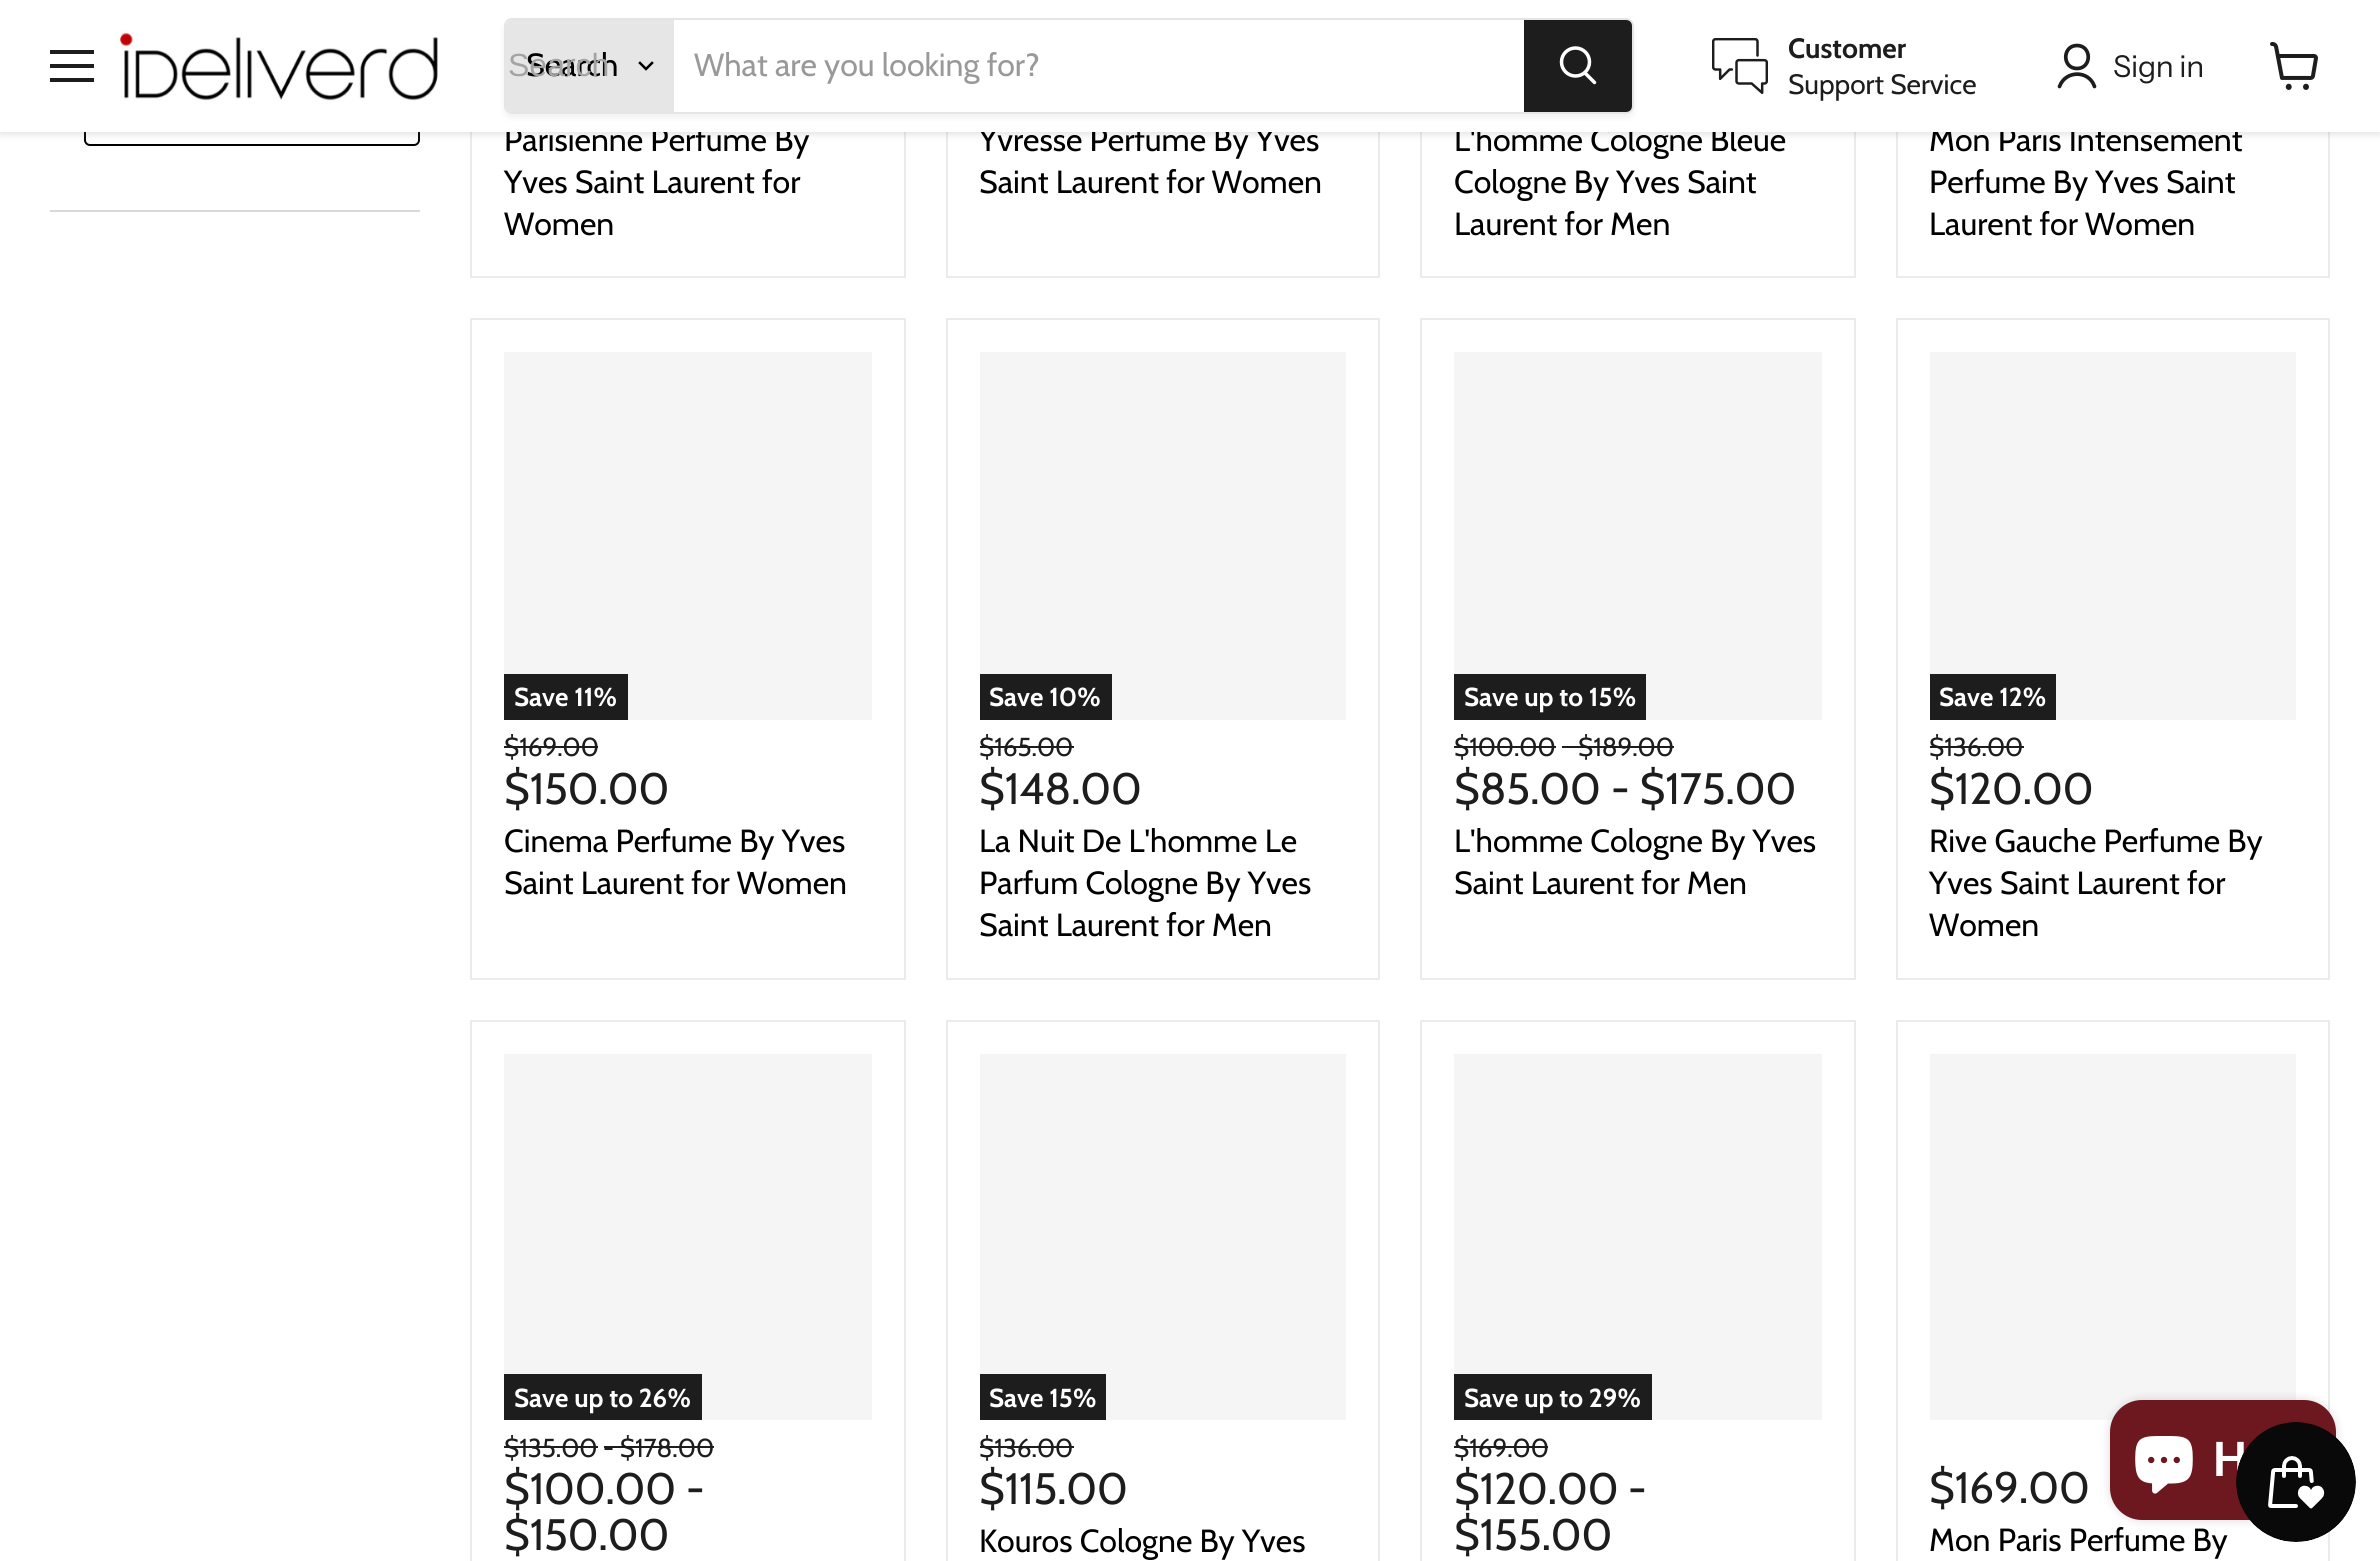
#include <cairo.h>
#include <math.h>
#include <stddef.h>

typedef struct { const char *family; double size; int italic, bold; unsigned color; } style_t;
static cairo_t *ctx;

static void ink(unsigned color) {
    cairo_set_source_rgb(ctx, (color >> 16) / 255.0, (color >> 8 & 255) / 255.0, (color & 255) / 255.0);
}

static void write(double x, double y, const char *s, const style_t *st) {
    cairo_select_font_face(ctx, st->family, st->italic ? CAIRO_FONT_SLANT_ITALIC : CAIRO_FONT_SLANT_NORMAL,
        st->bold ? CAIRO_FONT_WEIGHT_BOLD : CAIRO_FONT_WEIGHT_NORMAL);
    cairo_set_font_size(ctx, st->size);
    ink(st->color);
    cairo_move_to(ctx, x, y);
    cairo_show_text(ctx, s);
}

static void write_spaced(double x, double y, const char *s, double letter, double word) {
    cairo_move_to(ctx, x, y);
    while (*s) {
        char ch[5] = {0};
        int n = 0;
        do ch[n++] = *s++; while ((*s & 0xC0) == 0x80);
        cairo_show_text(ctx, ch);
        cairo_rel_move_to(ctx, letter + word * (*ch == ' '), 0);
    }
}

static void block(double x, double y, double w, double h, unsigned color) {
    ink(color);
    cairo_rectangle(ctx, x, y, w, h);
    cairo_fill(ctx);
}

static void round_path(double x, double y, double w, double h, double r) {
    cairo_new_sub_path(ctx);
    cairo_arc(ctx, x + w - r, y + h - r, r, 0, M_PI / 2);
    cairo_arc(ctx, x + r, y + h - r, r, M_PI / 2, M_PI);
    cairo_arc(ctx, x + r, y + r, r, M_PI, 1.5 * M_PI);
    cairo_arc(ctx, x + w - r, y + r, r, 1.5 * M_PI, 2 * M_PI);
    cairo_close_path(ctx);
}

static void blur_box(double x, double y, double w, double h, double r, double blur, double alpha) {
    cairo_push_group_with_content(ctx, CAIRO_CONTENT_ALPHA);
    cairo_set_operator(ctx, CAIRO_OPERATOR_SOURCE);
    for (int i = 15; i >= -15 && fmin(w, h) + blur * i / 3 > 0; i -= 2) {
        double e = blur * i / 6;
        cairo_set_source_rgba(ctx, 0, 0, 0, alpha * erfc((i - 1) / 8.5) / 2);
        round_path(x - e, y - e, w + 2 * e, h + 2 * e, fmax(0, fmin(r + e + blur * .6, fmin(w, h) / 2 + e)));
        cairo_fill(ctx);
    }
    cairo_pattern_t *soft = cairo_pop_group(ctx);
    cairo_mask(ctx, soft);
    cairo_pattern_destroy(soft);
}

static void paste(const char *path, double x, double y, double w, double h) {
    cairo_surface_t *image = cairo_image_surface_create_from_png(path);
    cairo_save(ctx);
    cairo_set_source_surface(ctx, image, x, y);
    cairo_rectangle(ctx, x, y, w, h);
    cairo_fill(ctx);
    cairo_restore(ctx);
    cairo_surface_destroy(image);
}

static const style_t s1 = {"Cabin", 32, 0, 0, 0x000000};
static const style_t s2 = {"Liberation Sans", 32, 0, 0, 0xa4a4a4};
static const style_t s3 = {"Cabin", 32, 0, 0, 0x999999};
static const style_t s4 = {"Cabin", 28, 0, 1, 0x1d1d1d};
static const style_t s5 = {"Cabin", 28, 0, 0, 0x1d1d1d};
static const style_t s6 = {"Cabin", 26, 0, 1, 0xffffff};
static const style_t s7 = {"Cabin", 26, 0, 0, 0x1d1d1d};
static const style_t s8 = {"Cabin", 44, 0, 0, 0x1d1d1d};
static const style_t s9 = {"Roboto SemiBold", 48, 0, 0, 0xffffff};

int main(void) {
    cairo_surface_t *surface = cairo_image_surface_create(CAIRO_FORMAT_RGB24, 2380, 1561);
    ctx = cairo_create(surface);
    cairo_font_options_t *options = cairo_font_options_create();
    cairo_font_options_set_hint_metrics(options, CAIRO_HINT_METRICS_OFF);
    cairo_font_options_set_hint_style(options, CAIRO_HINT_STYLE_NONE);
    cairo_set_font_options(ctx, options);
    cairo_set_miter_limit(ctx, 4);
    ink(0xffffff);
    cairo_paint(ctx);
    round_path(85, 47, 334, 98, 5);
    ink(0x000000);
    cairo_stroke(ctx);
    cairo_rectangle(ctx, 471, -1, 434, 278);
    ink(0xebebeb);
    cairo_stroke(ctx);
    cairo_rectangle(ctx, 947, -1, 432, 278);
    cairo_stroke(ctx);
    cairo_rectangle(ctx, 1421, -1, 434, 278);
    cairo_stroke(ctx);
    cairo_rectangle(ctx, 1897, -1, 432, 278);
    cairo_stroke(ctx);
    ink(0x808080);
    blur_box(0, 2, 2380, 132, 0, 4, 0.25);
    write(504, 151, "Parisienne Perfume By", &s1);
    write(979, 151, "Yvresse Perfume By Yves", &s1);
    write(1454, 151, "L'homme Cologne Bleue", &s1);
    write(1929, 151, "Mon Paris Intensement", &s1);
    block(0, 0, 2380, 132, 0xffffff);
    block(50, 50, 44, 4, 0x1d1d1d);
    block(50, 64, 44, 4, 0x1d1d1d);
    block(50, 78, 44, 4, 0x1d1d1d);
    paste("pic1.png", 120, 31, 318, 70);
    cairo_save(ctx);
    cairo_set_fill_rule(ctx, CAIRO_FILL_RULE_EVEN_ODD);
    cairo_new_path(ctx);
    cairo_move_to(ctx, 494, 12);
    cairo_line_to(ctx, 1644, 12);
    cairo_line_to(ctx, 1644, 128);
    cairo_line_to(ctx, 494, 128);
    cairo_close_path(ctx);
    cairo_move_to(ctx, 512, 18);
    cairo_line_to(ctx, 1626, 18);
    cairo_curve_to(ctx, 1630.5, 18, 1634, 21.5, 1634, 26);
    cairo_line_to(ctx, 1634, 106);
    cairo_curve_to(ctx, 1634, 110.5, 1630.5, 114, 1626, 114);
    cairo_line_to(ctx, 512, 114);
    cairo_curve_to(ctx, 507.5, 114, 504, 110.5, 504, 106);
    cairo_line_to(ctx, 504, 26);
    cairo_curve_to(ctx, 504, 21.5, 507.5, 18, 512, 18);
    cairo_close_path(ctx);
    cairo_clip(ctx);
    ink(0x808080);
    blur_box(504, 22, 1130, 96, 8, 3, 0.11);
    cairo_restore(ctx);
    round_path(505, 19, 1128, 94, 7);
    cairo_set_source_rgba(ctx, 0.502, 0.502, 0.502, 0.2);
    cairo_stroke(ctx);
    ink(0xe6e6e6);
    cairo_new_path(ctx);
    cairo_move_to(ctx, 512, 20);
    cairo_line_to(ctx, 674, 20);
    cairo_line_to(ctx, 674, 112);
    cairo_line_to(ctx, 512, 112);
    cairo_curve_to(ctx, 508.5, 112, 506, 109.5, 506, 106);
    cairo_line_to(ctx, 506, 26);
    cairo_curve_to(ctx, 506, 22.5, 508.5, 20, 512, 20);
    cairo_close_path(ctx);
    cairo_fill(ctx);
    write(526, 76, "Search", &s1);
    write(508, 76, "Search", &s2);
    cairo_new_path(ctx);
    cairo_move_to(ctx, 646, 69);
    cairo_line_to(ctx, 652, 63);
    cairo_move_to(ctx, 646, 69);
    cairo_line_to(ctx, 640, 63);
    ink(0x000000);
    cairo_set_line_width(ctx, 2.5);
    cairo_set_line_cap(ctx, CAIRO_LINE_CAP_SQUARE);
    cairo_stroke(ctx);
    write(694, 76, "What are you looking for?", &s3);
    ink(0x1d1d1d);
    cairo_new_path(ctx);
    cairo_move_to(ctx, 1525, 21);
    cairo_line_to(ctx, 1626, 21);
    cairo_curve_to(ctx, 1629, 21, 1631, 23, 1631, 26);
    cairo_line_to(ctx, 1631, 106);
    cairo_curve_to(ctx, 1631, 109, 1629, 111, 1626, 111);
    cairo_line_to(ctx, 1525, 111);
    cairo_close_path(ctx);
    cairo_fill_preserve(ctx);
    cairo_set_line_width(ctx, 2);
    cairo_set_line_cap(ctx, CAIRO_LINE_CAP_BUTT);
    cairo_stroke(ctx);
    cairo_new_path(ctx);
    cairo_move_to(ctx, 1594.5, 82.5);
    cairo_line_to(ctx, 1585, 73);
    ink(0xffffff);
    cairo_set_line_width(ctx, 3.5);
    cairo_set_line_cap(ctx, CAIRO_LINE_CAP_ROUND);
    cairo_stroke(ctx);
    cairo_arc(ctx, 1575.5, 62, 14, 0, 2 * M_PI);
    cairo_set_line_cap(ctx, CAIRO_LINE_CAP_BUTT);
    cairo_stroke(ctx);
    paste("pic2.png", 1712, 38, 56, 56);
    write(1788, 58, "Customer", &s4);
    write(1788, 94, "Support Service", &s5);
    cairo_new_path(ctx);
    cairo_move_to(ctx, 2077, 68.5);
    cairo_curve_to(ctx, 2092, 68.5, 2092, 45.5, 2077, 45.5);
    cairo_curve_to(ctx, 2062, 45.5, 2062, 68.5, 2077, 68.5);
    cairo_close_path(ctx);
    cairo_move_to(ctx, 2094.5, 86.5);
    cairo_curve_to(ctx, 2089, 70, 2065.5, 70, 2059.5, 86.5);
    cairo_set_line_width(ctx, 3.7);
    cairo_set_line_cap(ctx, CAIRO_LINE_CAP_ROUND);
    cairo_set_line_join(ctx, CAIRO_LINE_JOIN_ROUND);
    cairo_stroke(ctx);
    cairo_select_font_face(ctx, "Instrument Sans", CAIRO_FONT_SLANT_NORMAL, CAIRO_FONT_WEIGHT_NORMAL);
    cairo_set_font_size(ctx, 30);
    write_spaced(2113, 77, "Sign in", -0.25, 0);
    paste("pic3.png", 2270, 42, 48, 48);
    block(50, 210, 370, 2, 0xd9d9d9);
    write(504, 193, "Yves Saint Laurent for", &s1);
    write(504, 235, "Women", &s1);
    write(979, 193, "Saint Laurent for Women", &s1);
    write(1454, 193, "Cologne By Yves Saint", &s1);
    write(1454, 235, "Laurent for Men", &s1);
    write(1929, 193, "Perfume By Yves Saint", &s1);
    write(1929, 235, "Laurent for Women", &s1);
    cairo_rectangle(ctx, 471, 319, 434, 660);
    ink(0xebebeb);
    cairo_set_line_width(ctx, 2);
    cairo_set_line_cap(ctx, CAIRO_LINE_CAP_BUTT);
    cairo_set_line_join(ctx, CAIRO_LINE_JOIN_MITER);
    cairo_stroke(ctx);
    block(504, 352, 368, 368, 0xf5f5f5);
    block(504, 674, 124, 46, 0x1d1d1d);
    write(514, 706, "Save 11%", &s6);
    write(504, 756, "$169.00", &s7);
    block(504, 746, 94, 2, 0x1d1d1d);
    write(504, 804, "$150.00", &s8);
    write(504, 852, "Cinema Perfume By Yves", &s1);
    write(504, 894, "Saint Laurent for Women", &s1);
    cairo_rectangle(ctx, 947, 319, 432, 660);
    ink(0xebebeb);
    cairo_stroke(ctx);
    block(980, 352, 366, 368, 0xf5f5f5);
    block(980, 674, 132, 46, 0x1d1d1d);
    write(989, 706, "Save 10%", &s6);
    write(979, 756, "$165.00", &s7);
    block(980, 746, 94, 2, 0x1d1d1d);
    write(979, 804, "$148.00", &s8);
    write(979, 852, "La Nuit De L'homme Le", &s1);
    write(979, 894, "Parfum Cologne By Yves", &s1);
    write(979, 936, "Saint Laurent for Men", &s1);
    cairo_rectangle(ctx, 1421, 319, 434, 660);
    ink(0xebebeb);
    cairo_stroke(ctx);
    block(1454, 352, 368, 368, 0xf5f5f5);
    block(1454, 674, 192, 46, 0x1d1d1d);
    write(1464, 706, "Save up to 15%", &s6);
    write(1454, 756, "$100.00", &s7);
    block(1454, 746, 102, 2, 0x1d1d1d);
    block(1562, 746, 16, 2, 0x1d1d1d);
    write(1578, 756, "$189.00", &s7);
    block(1578, 746, 96, 2, 0x1d1d1d);
    write(1454, 804, "$85.00", &s8);
    write(1611, 804, "- $175.00", &s8);
    write(1454, 852, "L'homme Cologne By Yves", &s1);
    write(1454, 894, "Saint Laurent for Men", &s1);
    cairo_rectangle(ctx, 1897, 319, 432, 660);
    ink(0xebebeb);
    cairo_stroke(ctx);
    block(1930, 352, 366, 368, 0xf5f5f5);
    block(1930, 674, 126, 46, 0x1d1d1d);
    write(1939, 706, "Save 12%", &s6);
    write(1929, 756, "$136.00", &s7);
    block(1930, 746, 94, 2, 0x1d1d1d);
    write(1929, 804, "$120.00", &s8);
    write(1929, 852, "Rive Gauche Perfume By", &s1);
    write(1929, 894, "Yves Saint Laurent for", &s1);
    write(1929, 936, "Women", &s1);
    cairo_rectangle(ctx, 471, 1021, 434, 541);
    ink(0xebebeb);
    cairo_stroke(ctx);
    block(504, 1054, 368, 366, 0xf5f5f5);
    block(504, 1374, 198, 46, 0x1d1d1d);
    write(514, 1407, "Save up to 26%", &s6);
    write(504, 1457, "$135.00", &s7);
    block(504, 1446, 94, 2, 0x1d1d1d);
    write(603, 1457, "- $178.00", &s7);
    block(604, 1446, 110, 2, 0x1d1d1d);
    write(504, 1504, "$100.00", &s8);
    write(686, 1504, "-", &s8);
    write(504, 1550, "$150.00", &s8);
    cairo_rectangle(ctx, 947, 1021, 432, 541);
    ink(0xebebeb);
    cairo_stroke(ctx);
    block(980, 1054, 366, 366, 0xf5f5f5);
    block(980, 1374, 126, 46, 0x1d1d1d);
    write(989, 1407, "Save 15%", &s6);
    write(979, 1457, "$136.00", &s7);
    block(980, 1446, 94, 2, 0x1d1d1d);
    write(979, 1504, "$115.00", &s8);
    write(979, 1552, "Kouros Cologne By Yves", &s1);
    cairo_rectangle(ctx, 1421, 1021, 434, 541);
    ink(0xebebeb);
    cairo_stroke(ctx);
    block(1454, 1054, 368, 366, 0xf5f5f5);
    block(1454, 1374, 198, 46, 0x1d1d1d);
    write(1464, 1407, "Save up to 29%", &s6);
    write(1454, 1457, "$169.00", &s7);
    block(1454, 1446, 94, 2, 0x1d1d1d);
    write(1454, 1504, "$120.00", &s8);
    write(1628, 1504, "-", &s8);
    write(1454, 1550, "$155.00", &s8);
    cairo_rectangle(ctx, 1897, 1021, 432, 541);
    ink(0xebebeb);
    cairo_stroke(ctx);
    block(1930, 1054, 366, 366, 0xf5f5f5);
    write(1929, 1503, "$169.00", &s8);
    write(1929, 1551, "Mon Paris Perfume By", &s1);
    ink(0x000000);
    blur_box(2110, 1400, 226, 120, 32, 5, 0.15);
    ink(0x6c181e);
    round_path(2110, 1400, 226, 120, 32);
    cairo_fill(ctx);
    write(2213, 1476, "H", &s9);
    paste("pic4.png", 2236, 1422, 120, 120);
    paste("pic5.png", 2135, 1436, 58, 58);
    cairo_surface_write_to_png(surface, "screenshot.png");
    cairo_font_options_destroy(options);
    cairo_destroy(ctx);
    cairo_surface_destroy(surface);
    return 0;
}
